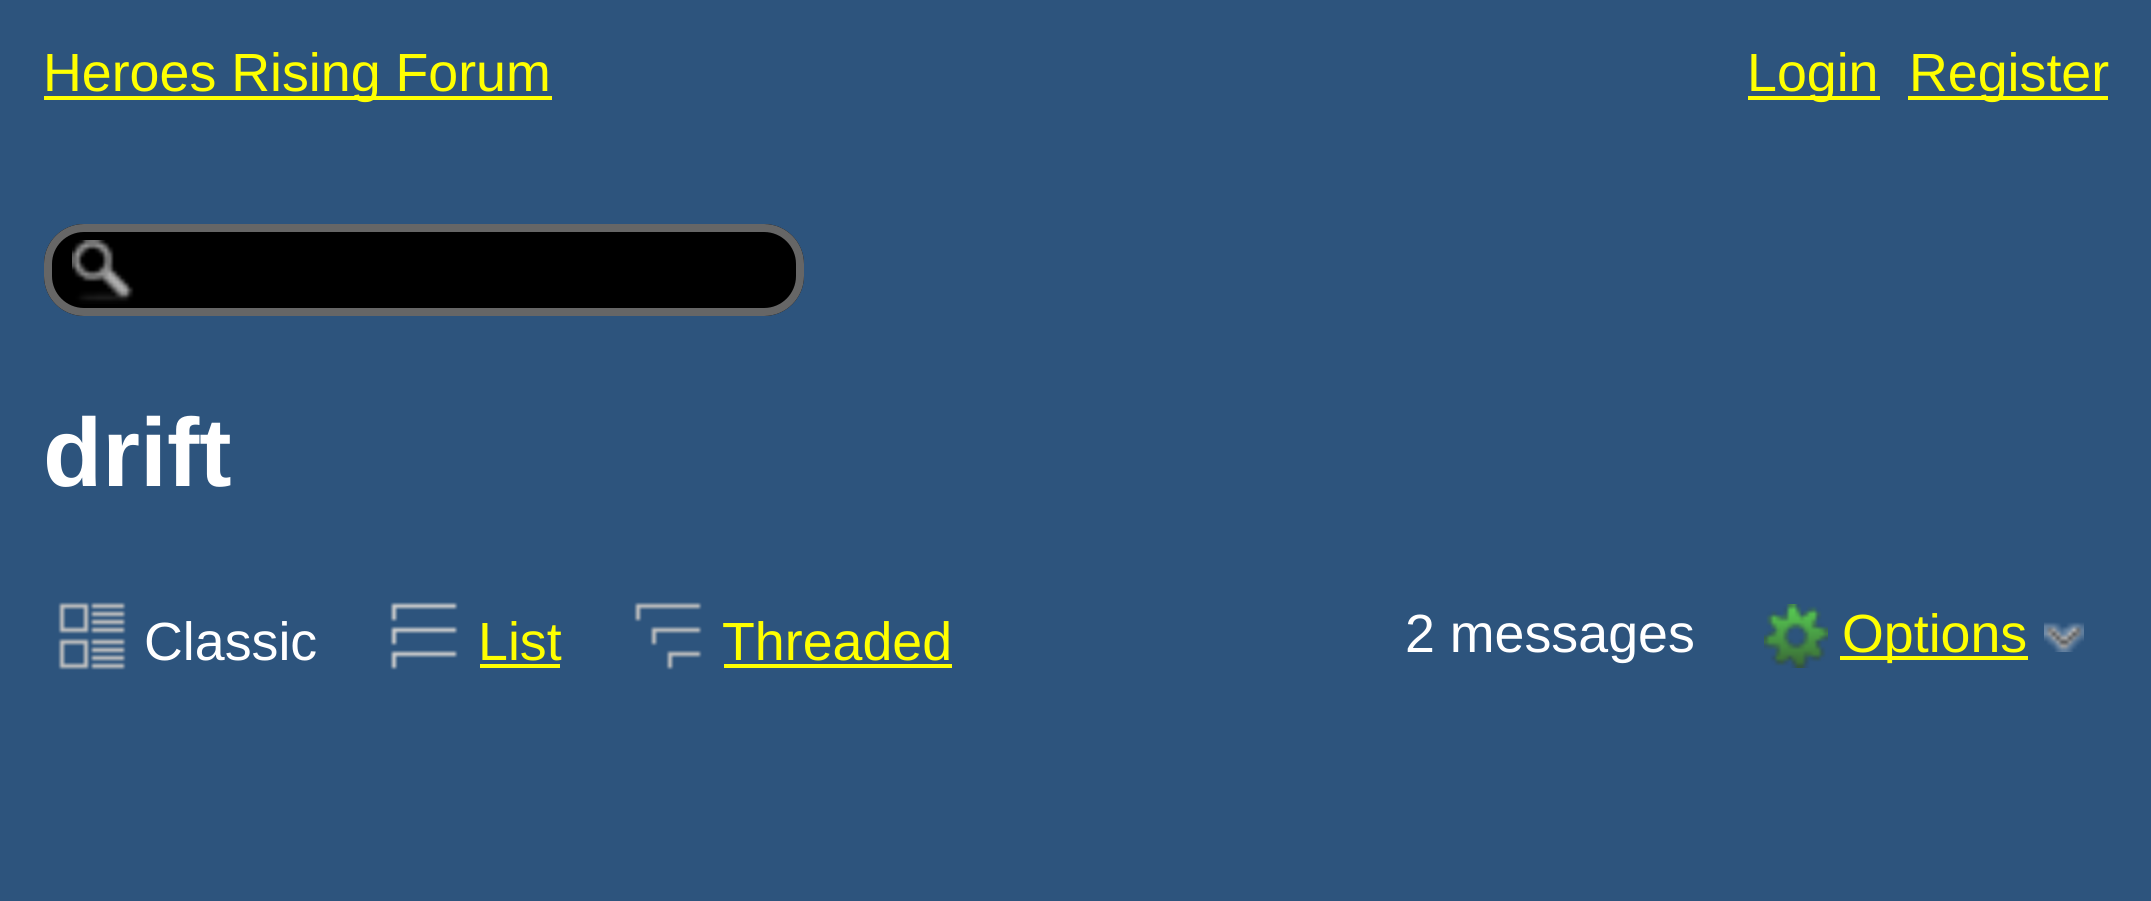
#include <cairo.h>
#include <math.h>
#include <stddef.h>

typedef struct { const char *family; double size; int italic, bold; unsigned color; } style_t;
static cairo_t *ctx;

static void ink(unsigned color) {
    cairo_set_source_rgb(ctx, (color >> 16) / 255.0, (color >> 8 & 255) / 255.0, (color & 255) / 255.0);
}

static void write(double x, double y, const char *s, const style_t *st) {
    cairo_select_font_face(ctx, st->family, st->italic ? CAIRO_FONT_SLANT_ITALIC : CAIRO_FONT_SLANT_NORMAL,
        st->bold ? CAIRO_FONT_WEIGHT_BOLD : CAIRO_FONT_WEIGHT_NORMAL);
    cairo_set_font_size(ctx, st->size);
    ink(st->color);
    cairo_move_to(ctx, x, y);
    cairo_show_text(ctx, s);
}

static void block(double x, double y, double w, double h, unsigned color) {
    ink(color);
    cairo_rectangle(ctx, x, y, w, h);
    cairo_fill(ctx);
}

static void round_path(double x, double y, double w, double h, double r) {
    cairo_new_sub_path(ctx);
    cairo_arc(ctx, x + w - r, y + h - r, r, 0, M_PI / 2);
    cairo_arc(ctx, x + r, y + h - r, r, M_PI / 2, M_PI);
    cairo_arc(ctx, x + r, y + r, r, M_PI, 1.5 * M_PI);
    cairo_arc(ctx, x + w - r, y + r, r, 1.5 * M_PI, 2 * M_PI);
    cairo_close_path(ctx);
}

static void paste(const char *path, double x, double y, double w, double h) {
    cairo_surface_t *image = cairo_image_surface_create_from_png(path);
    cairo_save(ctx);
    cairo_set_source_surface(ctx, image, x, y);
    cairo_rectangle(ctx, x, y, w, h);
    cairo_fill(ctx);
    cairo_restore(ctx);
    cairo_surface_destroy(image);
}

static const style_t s1 = {"Liberation Sans", 53.75, 0, 0, 0xffff00};
static const style_t s2 = {"Liberation Sans", 97, 0, 1, 0xffffff};
static const style_t s3 = {"Liberation Sans", 53.75, 0, 0, 0xffffff};

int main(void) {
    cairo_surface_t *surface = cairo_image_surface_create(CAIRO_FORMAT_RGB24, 2151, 901);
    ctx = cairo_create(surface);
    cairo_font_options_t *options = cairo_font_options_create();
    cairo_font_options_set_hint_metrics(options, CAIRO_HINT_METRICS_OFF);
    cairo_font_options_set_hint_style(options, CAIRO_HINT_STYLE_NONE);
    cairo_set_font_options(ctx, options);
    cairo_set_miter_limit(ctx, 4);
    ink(0x2d547d);
    cairo_paint(ctx);
    block(44, 96, 508, 4, 0xffff00);
    write(43, 91, "Heroes Rising Forum", &s1);
    block(1748, 96, 132, 4, 0xffff00);
    write(1747, 91, "Login", &s1);
    block(1908, 96, 200, 4, 0xffff00);
    write(1909, 91, "Register", &s1);
    ink(0x000000);
    round_path(44, 224, 760, 92, 40);
    cairo_fill(ctx);
    paste("pic1.png", 72, 240, 62, 64);
    round_path(48, 228, 752, 84, 36);
    ink(0x666666);
    cairo_set_line_width(ctx, 8);
    cairo_stroke(ctx);
    write(43, 486, "drift", &s2);
    paste("pic2.png", 58, 602, 68, 68);
    write(144, 660, "Classic", &s3);
    paste("pic3.png", 390, 602, 68, 68);
    write(478, 660, "List", &s1);
    block(480, 664, 80, 4, 0xffff00);
    paste("pic4.png", 634, 602, 68, 68);
    write(722, 660, "Threaded", &s1);
    block(724, 664, 228, 4, 0xffff00);
    write(1405, 652, "2 messages", &s3);
    paste("pic5.png", 1764, 604, 64, 64);
    block(1840, 656, 188, 4, 0xffff00);
    write(1842, 652, "Options", &s1);
    paste("pic6.png", 2044, 622, 40, 30);
    cairo_surface_write_to_png(surface, "screenshot.png");
    cairo_font_options_destroy(options);
    cairo_destroy(ctx);
    cairo_surface_destroy(surface);
    return 0;
}
